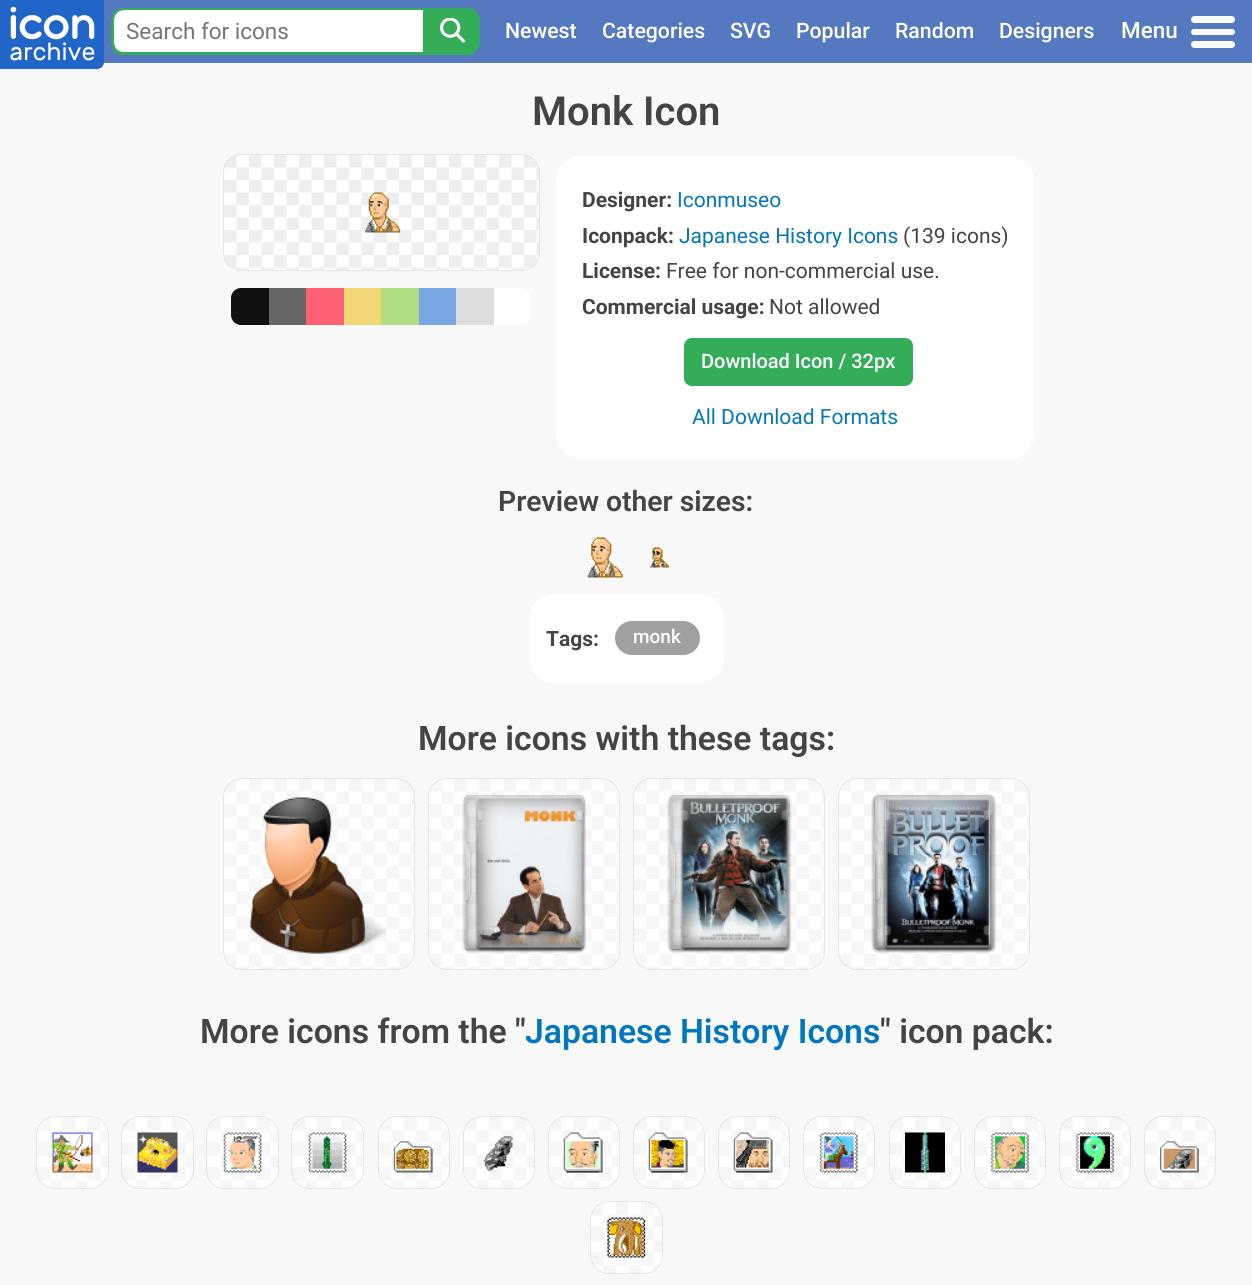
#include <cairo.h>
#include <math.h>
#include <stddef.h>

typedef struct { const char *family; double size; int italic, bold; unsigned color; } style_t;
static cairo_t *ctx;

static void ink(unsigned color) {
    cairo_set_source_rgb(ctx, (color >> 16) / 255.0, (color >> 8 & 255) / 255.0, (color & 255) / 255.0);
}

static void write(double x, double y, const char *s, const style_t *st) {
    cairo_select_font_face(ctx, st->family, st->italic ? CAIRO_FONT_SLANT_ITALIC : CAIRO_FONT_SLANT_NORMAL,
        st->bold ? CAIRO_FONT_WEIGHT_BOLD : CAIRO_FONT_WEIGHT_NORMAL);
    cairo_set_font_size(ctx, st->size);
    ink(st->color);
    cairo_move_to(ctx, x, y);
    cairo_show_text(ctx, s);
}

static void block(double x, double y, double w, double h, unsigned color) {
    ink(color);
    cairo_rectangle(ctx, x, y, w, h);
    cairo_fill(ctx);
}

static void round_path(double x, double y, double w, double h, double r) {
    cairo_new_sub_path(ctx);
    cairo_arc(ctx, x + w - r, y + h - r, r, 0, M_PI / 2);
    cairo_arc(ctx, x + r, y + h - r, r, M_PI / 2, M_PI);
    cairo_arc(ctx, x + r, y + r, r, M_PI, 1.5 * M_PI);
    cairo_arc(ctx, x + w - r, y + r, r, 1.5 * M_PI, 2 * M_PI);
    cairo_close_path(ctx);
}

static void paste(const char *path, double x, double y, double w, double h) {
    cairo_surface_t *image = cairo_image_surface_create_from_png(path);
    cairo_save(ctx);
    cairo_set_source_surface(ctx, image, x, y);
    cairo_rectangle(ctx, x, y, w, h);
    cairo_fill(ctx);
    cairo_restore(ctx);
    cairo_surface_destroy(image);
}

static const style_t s1 = {"Roboto", 22.5, 0, 0, 0x757575};
static const style_t s2 = {"Roboto Medium", 21.25, 0, 0, 0xffffff};
static const style_t s3 = {"Roboto Medium", 22.5, 0, 0, 0xffffff};
static const style_t s4 = {"Roboto SemiBold", 40, 0, 0, 0x444444};
static const style_t s5 = {"Roboto", 21, 0, 1, 0x444444};
static const style_t s6 = {"Roboto", 21, 0, 0, 0x0277bd};
static const style_t s7 = {"Roboto", 21, 0, 0, 0x444444};
static const style_t s8 = {"Roboto Medium", 20, 0, 0, 0xffffff};
static const style_t s9 = {"Roboto SemiBold", 28.25, 0, 0, 0x444444};
static const style_t s10 = {"Roboto Medium", 19, 0, 0, 0xffffff};
static const style_t s11 = {"Roboto SemiBold", 33.75, 0, 0, 0x444444};
static const style_t s12 = {"Roboto SemiBold", 33.75, 0, 0, 0x0277bd};

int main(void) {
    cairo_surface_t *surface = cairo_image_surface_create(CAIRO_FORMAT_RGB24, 1252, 1285);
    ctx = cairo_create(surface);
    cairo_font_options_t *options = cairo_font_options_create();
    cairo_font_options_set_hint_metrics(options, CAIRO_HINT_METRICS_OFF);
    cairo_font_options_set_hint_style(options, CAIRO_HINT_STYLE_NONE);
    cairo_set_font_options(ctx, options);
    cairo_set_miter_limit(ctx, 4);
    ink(0xf8f8f8);
    cairo_paint(ctx);
    block(103, 0, 1149, 63, 0x5479c1);
    paste("pic1.png", 0, 0, 104, 69);
    ink(0xffffff);
    cairo_new_path(ctx);
    cairo_move_to(ctx, 124, 10);
    cairo_line_to(ctx, 423, 10);
    cairo_line_to(ctx, 423, 53);
    cairo_line_to(ctx, 124, 53);
    cairo_curve_to(ctx, 118.5, 53, 114, 48.5, 114, 43);
    cairo_line_to(ctx, 114, 20);
    cairo_curve_to(ctx, 114, 14.5, 118.5, 10, 124, 10);
    cairo_close_path(ctx);
    cairo_fill(ctx);
    ink(0x34ad59);
    cairo_set_fill_rule(ctx, CAIRO_FILL_RULE_EVEN_ODD);
    cairo_new_path(ctx);
    cairo_move_to(ctx, 124, 8);
    cairo_line_to(ctx, 422, 8);
    cairo_line_to(ctx, 422, 55);
    cairo_line_to(ctx, 121, 55);
    cairo_curve_to(ctx, 109, 52, 111, 40, 111, 31);
    cairo_curve_to(ctx, 111, 22, 110, 8, 124, 8);
    cairo_close_path(ctx);
    cairo_move_to(ctx, 124, 10);
    cairo_line_to(ctx, 422, 10);
    cairo_line_to(ctx, 422, 52);
    cairo_line_to(ctx, 124, 52);
    cairo_curve_to(ctx, 118, 52, 114, 48, 114, 42);
    cairo_line_to(ctx, 114, 20);
    cairo_curve_to(ctx, 114, 14, 118, 10, 124, 10);
    cairo_close_path(ctx);
    cairo_fill(ctx);
    write(126, 39, "Search for icons", &s1);
    ink(0x34ad59);
    cairo_new_path(ctx);
    cairo_move_to(ctx, 423, 10);
    cairo_line_to(ctx, 468, 10);
    cairo_curve_to(ctx, 473.5, 10, 478, 14.5, 478, 20);
    cairo_line_to(ctx, 478, 43);
    cairo_curve_to(ctx, 478, 48.5, 473.5, 53, 468, 53);
    cairo_line_to(ctx, 423, 53);
    cairo_close_path(ctx);
    cairo_fill(ctx);
    cairo_new_path(ctx);
    cairo_move_to(ctx, 422, 8);
    cairo_line_to(ctx, 468, 8);
    cairo_curve_to(ctx, 474, 8, 480, 13, 480, 20);
    cairo_line_to(ctx, 480, 42);
    cairo_curve_to(ctx, 480, 49, 474, 55, 468, 55);
    cairo_line_to(ctx, 422, 55);
    cairo_close_path(ctx);
    cairo_move_to(ctx, 422, 10);
    cairo_line_to(ctx, 468, 10);
    cairo_curve_to(ctx, 473, 10, 478, 14, 478, 20);
    cairo_line_to(ctx, 478, 42);
    cairo_curve_to(ctx, 478, 48, 473, 52, 468, 52);
    cairo_line_to(ctx, 422, 52);
    cairo_close_path(ctx);
    cairo_fill(ctx);
    paste("pic2.png", 440, 18, 25, 25);
    write(505, 38, "Newest", &s2);
    write(602, 38, "Categories", &s2);
    write(730, 38, "SVG", &s2);
    write(796, 38, "Popular", &s2);
    write(895, 38, "Random", &s2);
    write(999, 38, "Designers", &s2);
    write(1121, 38, "Menu", &s3);
    round_path(1191, 16, 44, 7, 3.5);
    cairo_fill(ctx);
    round_path(1191, 29, 44, 6, 3);
    cairo_fill(ctx);
    round_path(1191, 41, 44, 7, 3.5);
    cairo_fill(ctx);
    write(532, 125, "Monk Icon", &s4);
    paste("pic3.png", 223, 154, 317, 117);
    round_path(223.5, 154.5, 316, 116, 18.5);
    ink(0xe5e5e5);
    cairo_set_line_width(ctx, 1);
    cairo_stroke(ctx);
    paste("pic4.png", 364, 192, 37, 41);
    ink(0x111111);
    cairo_new_path(ctx);
    cairo_move_to(ctx, 241, 288);
    cairo_line_to(ctx, 269, 288);
    cairo_line_to(ctx, 269, 325);
    cairo_line_to(ctx, 241, 325);
    cairo_curve_to(ctx, 235.5, 325, 231, 320.5, 231, 315);
    cairo_line_to(ctx, 231, 298);
    cairo_curve_to(ctx, 231, 292.5, 235.5, 288, 241, 288);
    cairo_close_path(ctx);
    cairo_fill(ctx);
    block(269, 288, 37, 37, 0x666666);
    block(306, 288, 38, 37, 0xfe6171);
    block(344, 288, 37, 37, 0xf3d776);
    block(381, 288, 38, 37, 0xb0dc82);
    block(419, 288, 37, 37, 0x79a7e4);
    block(456, 288, 38, 37, 0xdddddd);
    ink(0xffffff);
    cairo_new_path(ctx);
    cairo_move_to(ctx, 494, 288);
    cairo_line_to(ctx, 521, 288);
    cairo_curve_to(ctx, 526.5, 288, 531, 292.5, 531, 298);
    cairo_line_to(ctx, 531, 315);
    cairo_curve_to(ctx, 531, 320.5, 526.5, 325, 521, 325);
    cairo_line_to(ctx, 494, 325);
    cairo_close_path(ctx);
    cairo_fill(ctx);
    round_path(556, 156, 478, 303, 25);
    cairo_fill(ctx);
    write(582, 207, "Designer:", &s5);
    write(677, 207, "Iconmuseo", &s6);
    write(582, 243, "Iconpack:", &s5);
    write(679, 243, "Japanese History Icons", &s6);
    write(903, 243, "(139 icons)", &s7);
    write(582, 278, "License:", &s5);
    write(666, 278, "Free for non-commercial use.", &s7);
    write(582, 314, "Commercial usage:", &s5);
    write(769, 314, "Not allowed", &s7);
    ink(0x34ad59);
    round_path(684, 338, 229, 48, 8);
    cairo_fill(ctx);
    write(701, 368, "Download Icon / 32px", &s8);
    write(692, 424, "All Download Formats", &s6);
    write(498, 511, "Preview other sizes:", &s9);
    paste("pic5.png", 587, 537, 36, 41);
    paste("pic6.png", 649, 547, 20, 21);
    ink(0xffffff);
    round_path(529, 594, 195, 89, 25);
    cairo_fill(ctx);
    write(546, 646, "Tags:", &s5);
    ink(0xa0a0a0);
    round_path(615, 621, 85, 34, 17);
    cairo_fill(ctx);
    write(633, 643, "monk", &s10);
    write(418, 750, "More icons with these tags:", &s11);
    paste("pic7.png", 223, 778, 192, 192);
    round_path(223.5, 778.5, 191, 191, 18.5);
    ink(0xe5e5e5);
    cairo_stroke(ctx);
    paste("pic8.png", 249, 797, 138, 157);
    paste("pic7.png", 428, 778, 192, 192);
    round_path(428.5, 778.5, 191, 191, 18.5);
    cairo_stroke(ctx);
    paste("pic9.png", 462, 795, 125, 158);
    paste("pic7.png", 633, 778, 192, 192);
    round_path(633.5, 778.5, 191, 191, 18.5);
    cairo_stroke(ctx);
    paste("pic10.png", 667, 795, 125, 158);
    paste("pic11.png", 838, 778, 192, 192);
    round_path(838.5, 778.5, 191, 191, 18.5);
    cairo_stroke(ctx);
    paste("pic12.png", 871, 794, 126, 159);
    write(200, 1043, "More icons from the \"", &s11);
    write(525, 1043, "Japanese History Icons", &s12);
    write(880, 1043, "\" icon pack:", &s11);
    paste("pic13.png", 37, 1117, 71, 71);
    round_path(36.5, 1116.5, 72, 72, 18.5);
    ink(0xe5e5e5);
    cairo_stroke(ctx);
    paste("pic14.png", 52, 1132, 41, 41);
    paste("pic13.png", 122, 1117, 71, 71);
    round_path(121.5, 1116.5, 72, 72, 18.5);
    cairo_stroke(ctx);
    paste("pic15.png", 137, 1132, 41, 41);
    paste("pic16.png", 207, 1117, 71, 71);
    round_path(206.5, 1116.5, 72, 72, 18.5);
    cairo_stroke(ctx);
    paste("pic17.png", 223, 1132, 39, 41);
    paste("pic13.png", 292, 1117, 71, 71);
    round_path(291.5, 1116.5, 72, 72, 18.5);
    cairo_stroke(ctx);
    paste("pic18.png", 308, 1132, 39, 41);
    paste("pic19.png", 378, 1117, 72, 71);
    round_path(378.5, 1116.5, 71, 72, 18.5);
    cairo_stroke(ctx);
    paste("pic20.png", 393, 1141, 40, 32);
    paste("pic21.png", 463, 1117, 72, 71);
    round_path(463.5, 1116.5, 71, 72, 18.5);
    cairo_stroke(ctx);
    paste("pic22.png", 483, 1136, 30, 36);
    paste("pic19.png", 548, 1117, 72, 71);
    round_path(548.5, 1116.5, 71, 72, 18.5);
    cairo_stroke(ctx);
    paste("pic23.png", 563, 1132, 40, 41);
    paste("pic19.png", 633, 1117, 72, 71);
    round_path(633.5, 1116.5, 71, 72, 18.5);
    cairo_stroke(ctx);
    paste("pic24.png", 648, 1132, 40, 41);
    paste("pic21.png", 718, 1117, 72, 71);
    round_path(718.5, 1116.5, 71, 72, 18.5);
    cairo_stroke(ctx);
    paste("pic25.png", 733, 1132, 40, 41);
    paste("pic19.png", 803, 1117, 72, 71);
    round_path(803.5, 1116.5, 71, 72, 18.5);
    cairo_stroke(ctx);
    paste("pic26.png", 819, 1132, 39, 41);
    paste("pic27.png", 889, 1117, 72, 71);
    round_path(889.5, 1116.5, 71, 72, 18.5);
    cairo_stroke(ctx);
    paste("pic28.png", 905, 1132, 40, 41);
    paste("pic27.png", 974, 1117, 72, 71);
    round_path(974.5, 1116.5, 71, 72, 18.5);
    cairo_stroke(ctx);
    paste("pic29.png", 991, 1132, 38, 41);
    paste("pic30.png", 1059, 1117, 72, 71);
    round_path(1059.5, 1116.5, 71, 72, 18.5);
    cairo_stroke(ctx);
    paste("pic31.png", 1076, 1132, 38, 41);
    paste("pic30.png", 1144, 1117, 72, 71);
    round_path(1144.5, 1116.5, 71, 72, 18.5);
    cairo_stroke(ctx);
    paste("pic32.png", 1160, 1141, 39, 32);
    paste("pic33.png", 590, 1202, 72, 71);
    round_path(590.5, 1201.5, 72, 72, 18.5);
    cairo_stroke(ctx);
    paste("pic34.png", 607, 1217, 39, 41);
    cairo_surface_write_to_png(surface, "screenshot.png");
    cairo_font_options_destroy(options);
    cairo_destroy(ctx);
    cairo_surface_destroy(surface);
    return 0;
}
